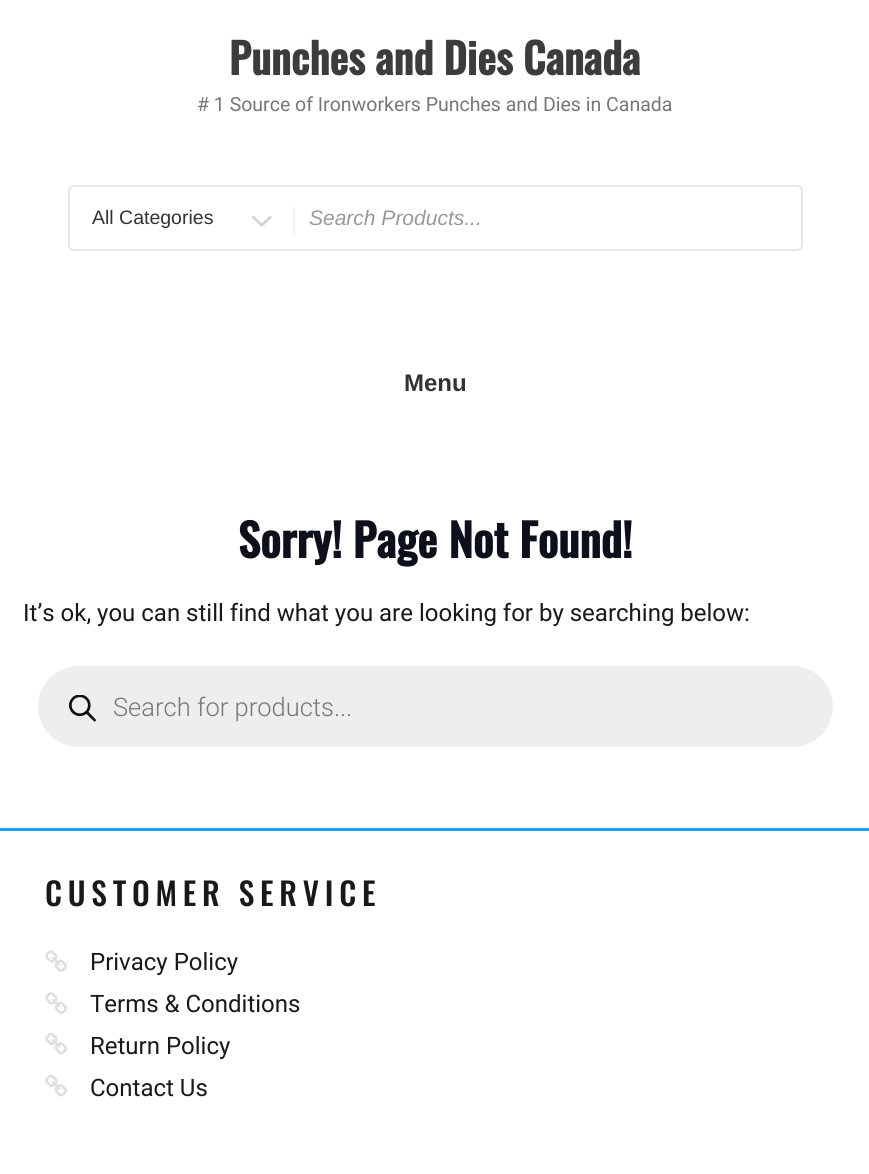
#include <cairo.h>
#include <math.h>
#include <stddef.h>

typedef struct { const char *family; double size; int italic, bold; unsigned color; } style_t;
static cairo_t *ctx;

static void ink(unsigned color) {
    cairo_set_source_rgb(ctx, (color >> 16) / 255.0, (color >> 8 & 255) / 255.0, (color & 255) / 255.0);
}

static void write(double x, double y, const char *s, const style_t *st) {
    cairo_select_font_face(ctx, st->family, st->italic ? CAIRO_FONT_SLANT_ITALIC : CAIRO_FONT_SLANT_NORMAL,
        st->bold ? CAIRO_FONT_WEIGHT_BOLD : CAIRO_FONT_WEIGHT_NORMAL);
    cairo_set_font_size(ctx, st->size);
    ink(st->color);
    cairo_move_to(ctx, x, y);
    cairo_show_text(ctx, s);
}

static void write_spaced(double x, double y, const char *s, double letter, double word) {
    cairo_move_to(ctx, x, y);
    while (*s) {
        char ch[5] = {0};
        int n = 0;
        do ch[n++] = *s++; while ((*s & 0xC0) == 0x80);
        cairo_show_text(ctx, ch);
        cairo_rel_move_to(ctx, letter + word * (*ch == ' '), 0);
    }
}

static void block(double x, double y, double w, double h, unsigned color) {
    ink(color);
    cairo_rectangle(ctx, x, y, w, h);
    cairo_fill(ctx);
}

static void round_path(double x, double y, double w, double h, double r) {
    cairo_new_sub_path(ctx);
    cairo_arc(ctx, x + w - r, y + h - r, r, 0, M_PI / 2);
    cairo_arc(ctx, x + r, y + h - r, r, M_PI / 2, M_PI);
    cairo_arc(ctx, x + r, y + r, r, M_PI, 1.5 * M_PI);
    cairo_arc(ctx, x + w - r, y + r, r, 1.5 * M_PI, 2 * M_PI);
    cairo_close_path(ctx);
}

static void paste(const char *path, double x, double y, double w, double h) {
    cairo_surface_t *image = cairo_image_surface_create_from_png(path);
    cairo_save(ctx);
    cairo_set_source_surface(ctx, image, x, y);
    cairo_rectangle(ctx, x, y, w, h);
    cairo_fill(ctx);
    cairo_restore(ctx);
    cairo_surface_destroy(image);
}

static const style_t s1 = {"Oswald", 42, 0, 1, 0x3c3c3c};
static const style_t s2 = {"Roboto", 19.5, 0, 0, 0x777777};
static const style_t s3 = {"Liberation Sans", 19.5, 0, 0, 0x333333};
static const style_t s4 = {"Liberation Sans", 21, 1, 0, 0x999999};
static const style_t s5 = {"Liberation Sans", 24, 0, 1, 0x333333};
static const style_t s6 = {"Oswald", 45, 0, 1, 0x0d0f1a};
static const style_t s7 = {"Roboto", 24, 0, 0, 0x191919};
static const style_t s8 = {"Roboto Light", 25.5, 0, 0, 0x777777};

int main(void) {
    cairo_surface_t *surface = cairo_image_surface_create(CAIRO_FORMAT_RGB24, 869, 1174);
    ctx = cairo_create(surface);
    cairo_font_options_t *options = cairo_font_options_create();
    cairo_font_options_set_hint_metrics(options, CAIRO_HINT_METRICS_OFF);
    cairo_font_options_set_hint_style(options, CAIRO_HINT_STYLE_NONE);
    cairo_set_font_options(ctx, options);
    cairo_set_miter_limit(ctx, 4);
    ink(0xffffff);
    cairo_paint(ctx);
    write(229, 75, "Punches and Dies Canada", &s1);
    write(197, 111, "# 1 Source of Ironworkers Punches and Dies in Canada", &s2);
    round_path(69, 186, 733, 64, 5);
    ink(0xe6e6e6);
    cairo_stroke(ctx);
    paste("pic1.png", 252, 216, 20, 11);
    write(92, 224, "All Categories", &s3);
    block(293, 207, 2, 27, 0xf0f0f0);
    write(309, 225, "Search Products...", &s4);
    write(404, 391, "Menu", &s5);
    write(238, 558, "Sorry! Page Not Found!", &s6);
    write(23, 621, "It’s ok, you can still find what you are looking for by searching below:", &s7);
    ink(0xeeeeee);
    round_path(38, 666, 795, 81, 40.5);
    cairo_fill(ctx);
    paste("pic2.png", 69, 695, 27, 27);
    write(113, 716, "Search for products...", &s8);
    block(0, 828, 869, 3, 0x1da1f2);
    cairo_select_font_face(ctx, "Oswald Medium", CAIRO_FONT_SLANT_NORMAL, CAIRO_FONT_WEIGHT_NORMAL);
    cairo_set_font_size(ctx, 31.5);
    ink(0x191919);
    write_spaced(45, 906, "CUSTOMER SERVICE", 5.75, 0);
    paste("pic3.png", 45, 950, 22, 22);
    write(90, 970, "Privacy Policy", &s7);
    paste("pic3.png", 45, 992, 22, 22);
    write(90, 1012, "Terms & Conditions", &s7);
    paste("pic4.png", 45, 1032, 22, 23);
    write(90, 1054, "Return Policy", &s7);
    paste("pic4.png", 45, 1074, 22, 23);
    write(90, 1096, "Contact Us", &s7);
    cairo_surface_write_to_png(surface, "screenshot.png");
    cairo_font_options_destroy(options);
    cairo_destroy(ctx);
    cairo_surface_destroy(surface);
    return 0;
}
